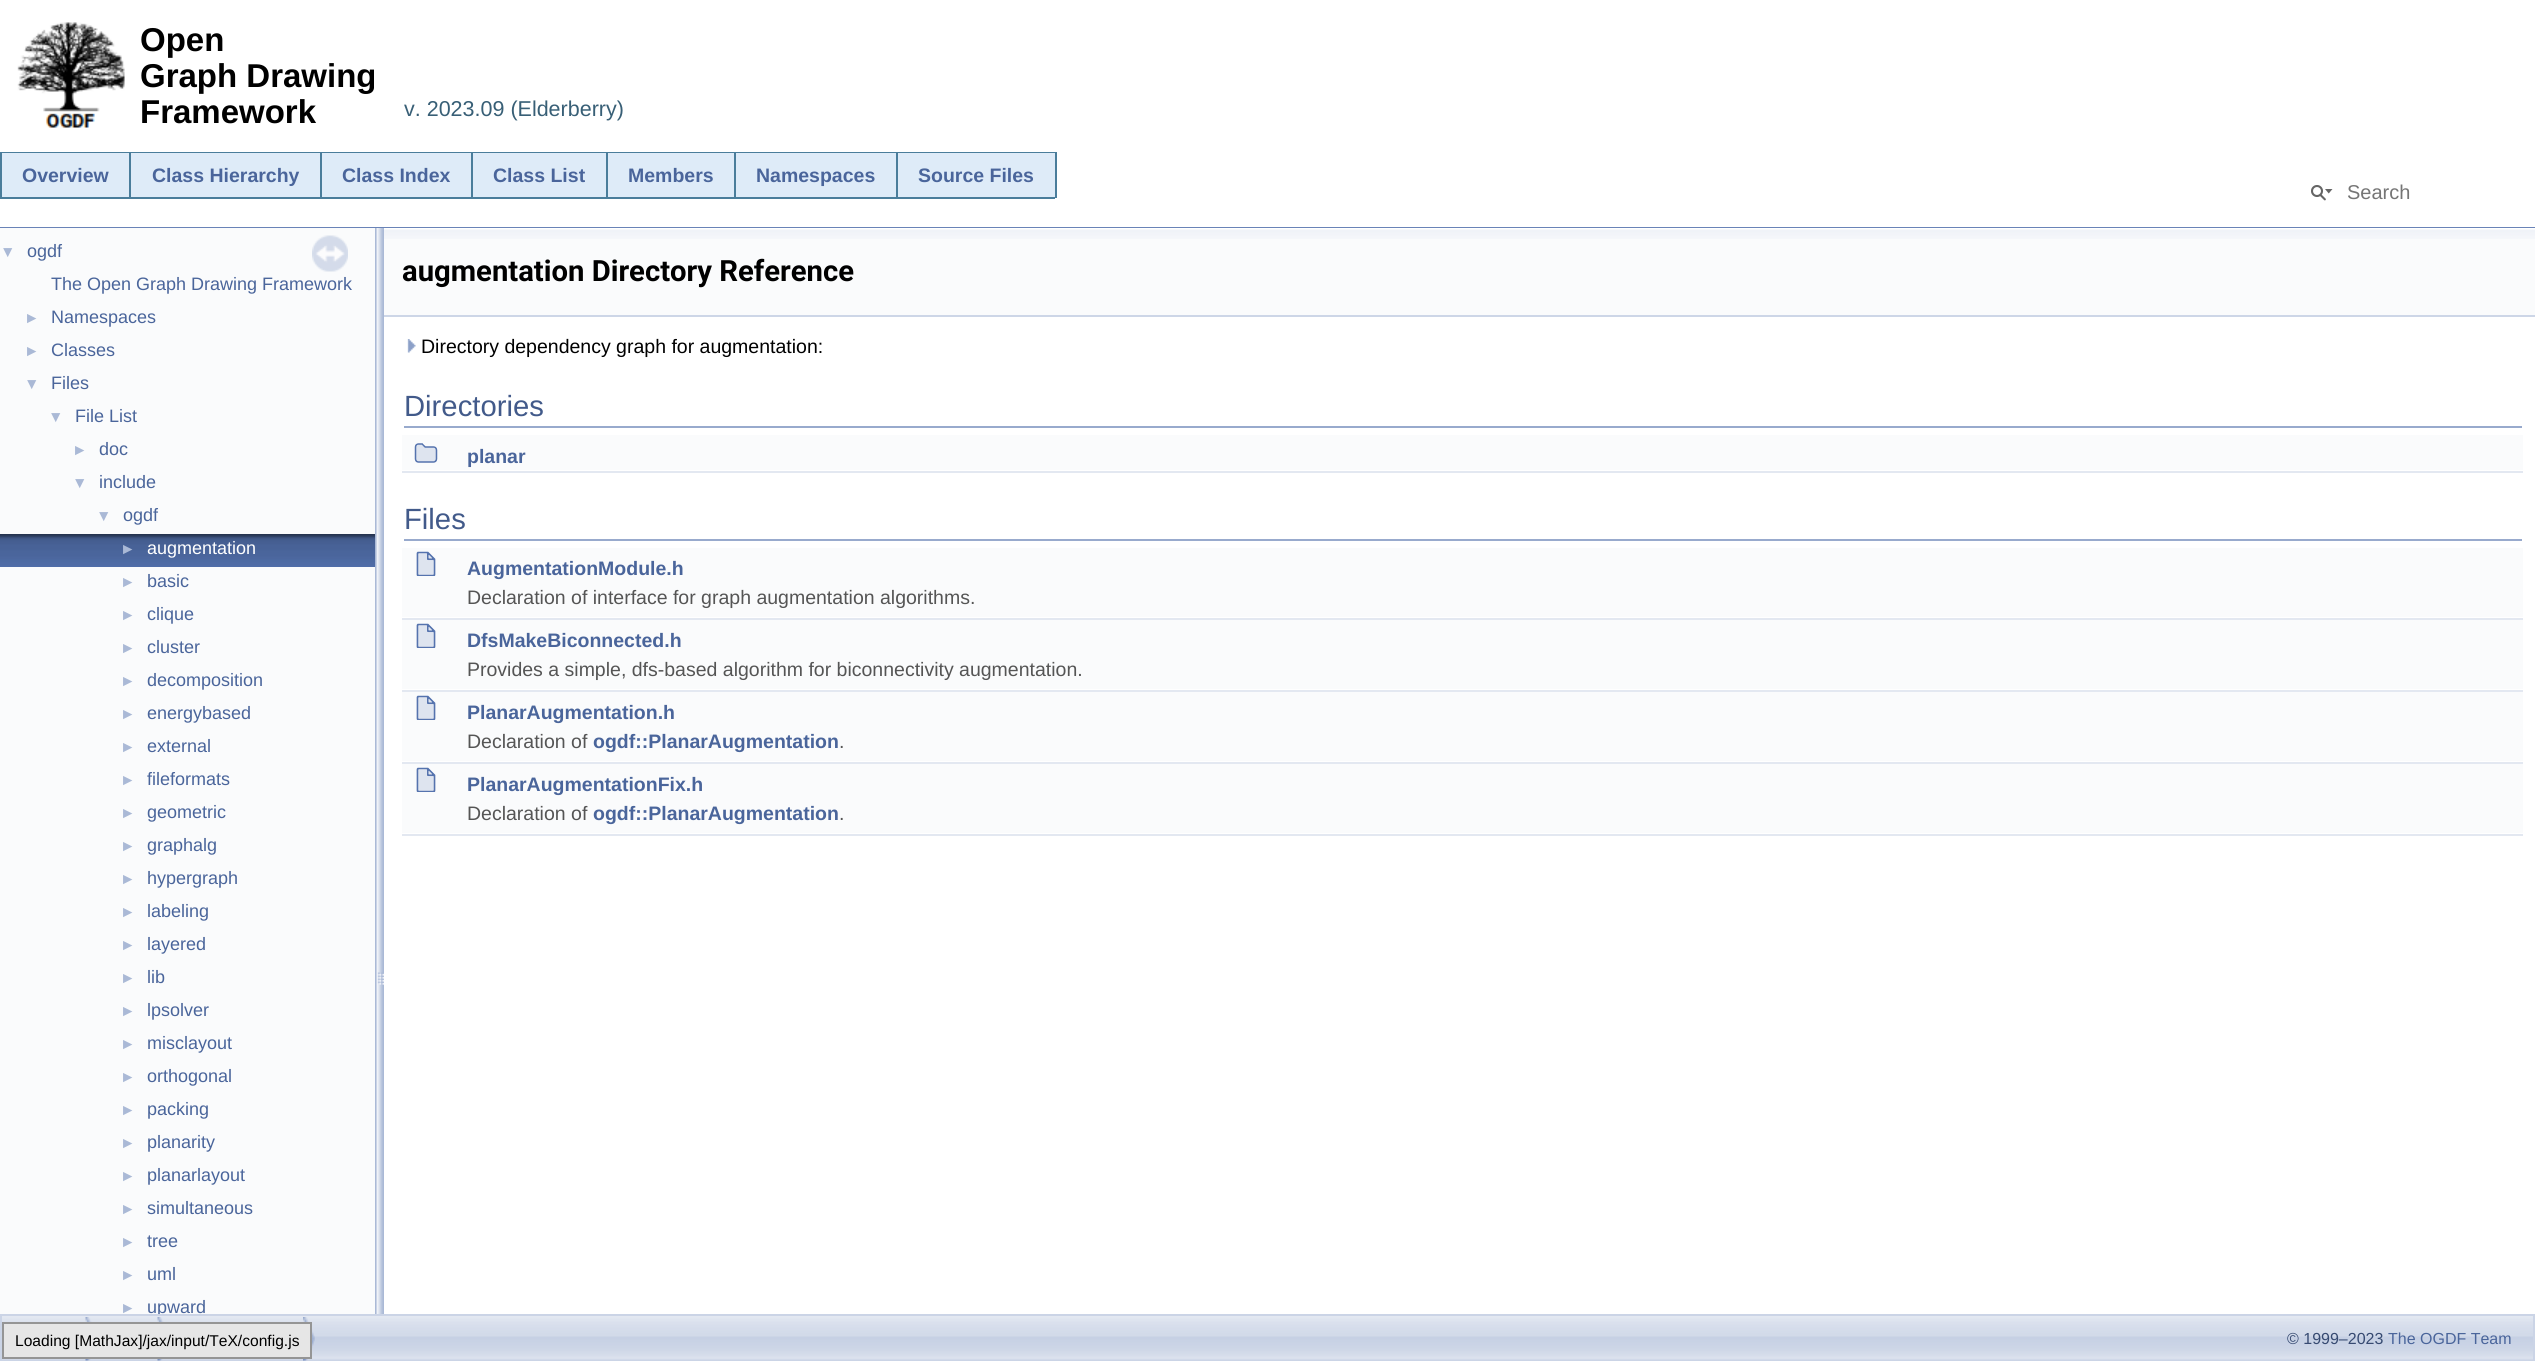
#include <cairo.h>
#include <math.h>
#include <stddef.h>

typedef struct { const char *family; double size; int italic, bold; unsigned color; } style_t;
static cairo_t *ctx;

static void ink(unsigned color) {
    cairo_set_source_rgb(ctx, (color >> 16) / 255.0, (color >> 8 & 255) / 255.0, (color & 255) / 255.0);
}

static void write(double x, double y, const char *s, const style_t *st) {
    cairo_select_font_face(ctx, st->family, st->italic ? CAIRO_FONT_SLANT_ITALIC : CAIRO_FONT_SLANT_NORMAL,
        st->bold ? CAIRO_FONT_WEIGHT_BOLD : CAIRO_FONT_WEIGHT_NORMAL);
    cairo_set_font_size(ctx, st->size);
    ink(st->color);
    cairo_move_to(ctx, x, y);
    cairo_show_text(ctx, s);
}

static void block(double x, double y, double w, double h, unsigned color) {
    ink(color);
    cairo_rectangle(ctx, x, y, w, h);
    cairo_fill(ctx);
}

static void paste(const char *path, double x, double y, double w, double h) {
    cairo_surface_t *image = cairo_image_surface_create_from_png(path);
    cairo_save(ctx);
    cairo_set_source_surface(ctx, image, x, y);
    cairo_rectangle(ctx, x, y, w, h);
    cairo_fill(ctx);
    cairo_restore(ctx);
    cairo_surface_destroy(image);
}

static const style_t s1 = {"Liberation Sans", 33, 0, 1, 0x000000};
static const style_t s2 = {"Liberation Sans", 21.5, 0, 0, 0x385f76};
static const style_t s3 = {"Liberation Sans", 19.5, 0, 1, 0x4a659b};
static const style_t s4 = {"Liberation Sans", 20, 0, 0, 0x757575};
static const style_t s5 = {"Liberation Sans", 15.6, 0, 0, 0xaab9d6};
static const style_t s6 = {"Liberation Sans", 18, 0, 0, 0x4a659b};
static const style_t s7 = {"Liberation Sans", 18, 0, 0, 0xffffff};
static const style_t s8 = {"Roboto", 29.25, 0, 1, 0x000000};
static const style_t s9 = {"Liberation Sans", 19.5, 0, 0, 0x000000};
static const style_t s10 = {"Liberation Sans", 29.25, 0, 0, 0x425a8a};
static const style_t s11 = {"Liberation Sans", 19.5, 0, 0, 0x555555};
static const style_t s12 = {"Liberation Sans", 15.6, 0, 0, 0x000000};
static const style_t s13 = {"Liberation Sans", 16, 0, 0, 0x364a71};
static const style_t s14 = {"Liberation Sans", 16, 0, 0, 0x4a659b};

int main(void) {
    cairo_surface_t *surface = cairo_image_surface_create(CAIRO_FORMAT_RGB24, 2535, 1361);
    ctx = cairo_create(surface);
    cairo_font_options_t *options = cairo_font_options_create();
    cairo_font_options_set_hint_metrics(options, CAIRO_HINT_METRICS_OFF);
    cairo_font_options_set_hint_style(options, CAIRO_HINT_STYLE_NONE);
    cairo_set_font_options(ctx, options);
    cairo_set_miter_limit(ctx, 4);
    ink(0xffffff);
    cairo_paint(ctx);
    block(0, 227, 2535, 1, 0x6983b7);
    paste("pic1.png", 17, 22, 108, 106);
    write(140, 51, "Open", &s1);
    write(140, 87, "Graph Drawing", &s1);
    write(140, 123, "Framework", &s1);
    write(404, 116, "v. 2023.09 (Elderberry)", &s2);
    block(0, 152, 1056, 1, 0x4a7d9b);
    block(1055, 152, 2, 46, 0x4a7d9b);
    block(2, 153, 1053, 44, 0xdeebf8);
    block(0, 197, 1055, 2, 0x4a7d9b);
    block(0, 153, 2, 45, 0x4a7d9b);
    write(22, 182, "Overview", &s3);
    block(129, 153, 2, 45, 0x4a7d9b);
    write(152, 182, "Class Hierarchy", &s3);
    block(320, 153, 2, 45, 0x4a7d9b);
    write(342, 182, "Class Index", &s3);
    block(471, 153, 2, 45, 0x4a7d9b);
    write(493, 182, "Class List", &s3);
    block(606, 153, 2, 45, 0x4a7d9b);
    write(628, 182, "Members", &s3);
    block(734, 153, 2, 45, 0x4a7d9b);
    write(756, 182, "Namespaces", &s3);
    block(896, 153, 2, 45, 0x4a7d9b);
    write(918, 182, "Source Files", &s3);
    paste("pic2.png", 2311, 185, 22, 16);
    write(2347, 199, "Search", &s4);
    block(0, 228, 375, 1086, 0xfafbfc);
    paste("pic3.png", 312, 235, 36, 37);
    write(0, 257, "▼", &s5);
    write(27, 257, "ogdf", &s6);
    write(51, 290, "The Open Graph Drawing Framework", &s6);
    write(24, 323, "►", &s5);
    write(51, 323, "Namespaces", &s6);
    write(24, 356, "►", &s5);
    write(51, 356, "Classes", &s6);
    write(24, 389, "▼", &s5);
    write(51, 389, "Files", &s6);
    write(48, 422, "▼", &s5);
    write(75, 422, "File List", &s6);
    write(72, 455, "►", &s5);
    write(99, 455, "doc", &s6);
    write(72, 488, "▼", &s5);
    write(99, 488, "include", &s6);
    write(96, 521, "▼", &s5);
    write(123, 521, "ogdf", &s6);
    paste("pic4.png", 0, 534, 375, 33);
    write(120, 554, "►", &s5);
    write(147, 554, "augmentation", &s7);
    write(120, 587, "►", &s5);
    write(147, 587, "basic", &s6);
    write(120, 620, "►", &s5);
    write(147, 620, "clique", &s6);
    write(120, 653, "►", &s5);
    write(147, 653, "cluster", &s6);
    write(120, 686, "►", &s5);
    write(147, 686, "decomposition", &s6);
    write(120, 719, "►", &s5);
    write(147, 719, "energybased", &s6);
    write(120, 752, "►", &s5);
    write(147, 752, "external", &s6);
    write(120, 785, "►", &s5);
    write(147, 785, "fileformats", &s6);
    write(120, 818, "►", &s5);
    write(147, 818, "geometric", &s6);
    write(120, 851, "►", &s5);
    write(147, 851, "graphalg", &s6);
    write(120, 884, "►", &s5);
    write(147, 884, "hypergraph", &s6);
    write(120, 917, "►", &s5);
    write(147, 917, "labeling", &s6);
    write(120, 950, "►", &s5);
    write(147, 950, "layered", &s6);
    write(120, 983, "►", &s5);
    write(147, 983, "lib", &s6);
    write(120, 1016, "►", &s5);
    write(147, 1016, "lpsolver", &s6);
    write(120, 1049, "►", &s5);
    write(147, 1049, "misclayout", &s6);
    write(120, 1082, "►", &s5);
    write(147, 1082, "orthogonal", &s6);
    write(120, 1115, "►", &s5);
    write(147, 1115, "packing", &s6);
    write(120, 1148, "►", &s5);
    write(147, 1148, "planarity", &s6);
    write(120, 1181, "►", &s5);
    write(147, 1181, "planarlayout", &s6);
    write(120, 1214, "►", &s5);
    write(147, 1214, "simultaneous", &s6);
    write(120, 1247, "►", &s5);
    write(147, 1247, "tree", &s6);
    write(120, 1280, "►", &s5);
    write(147, 1280, "uml", &s6);
    write(120, 1313, "►", &s5);
    cairo_save(ctx);
    cairo_rectangle(ctx, 0, 228, 375, 1086);
    cairo_clip(ctx);
    write(147, 1313, "upward", &s6);
    cairo_restore(ctx);
    paste("pic5.png", 375, 228, 9, 1086);
    block(384, 239, 2151, 76, 0xfafbfc);
    paste("pic6.png", 384, 228, 2151, 11);
    block(384, 315, 2151, 2, 0xcdd6e7);
    write(402, 281, "augmentation Directory Reference", &s8);
    paste("pic7.png", 407, 339, 9, 14);
    write(421, 353, "Directory dependency graph for augmentation:", &s9);
    block(404, 426, 2118, 2, 0x98aacd);
    write(404, 416, "Directories", &s10);
    block(402, 435, 2121, 35, 0xfafbfc);
    paste("pic8.png", 414, 443, 24, 20);
    write(467, 463, "planar", &s3);
    block(402, 471, 2121, 2, 0xe3e8f1);
    block(404, 539, 2118, 2, 0x98aacd);
    write(404, 529, "Files", &s10);
    block(402, 548, 2121, 34, 0xfafbfc);
    paste("pic9.png", 416, 551, 20, 25);
    write(467, 575, "AugmentationModule.h", &s3);
    block(402, 582, 2121, 35, 0xfafbfc);
    write(467, 604, "Declaration of interface for graph augmentation algorithms.", &s11);
    block(402, 618, 2121, 2, 0xe3e8f1);
    block(402, 620, 2121, 34, 0xfafbfc);
    paste("pic9.png", 416, 623, 20, 25);
    write(467, 647, "DfsMakeBiconnected.h", &s3);
    block(402, 654, 2121, 35, 0xfafbfc);
    write(467, 676, "Provides a simple, dfs-based algorithm for biconnectivity augmentation.", &s11);
    block(402, 690, 2121, 2, 0xe3e8f1);
    block(402, 692, 2121, 34, 0xfafbfc);
    paste("pic9.png", 416, 695, 20, 25);
    write(467, 719, "PlanarAugmentation.h", &s3);
    block(402, 726, 2121, 35, 0xfafbfc);
    write(467, 748, "Declaration of", &s11);
    write(593, 748, "ogdf::PlanarAugmentation", &s3);
    write(839, 748, ".", &s11);
    block(402, 762, 2121, 2, 0xe3e8f1);
    block(402, 764, 2121, 34, 0xfafbfc);
    paste("pic9.png", 416, 767, 20, 25);
    write(467, 791, "PlanarAugmentationFix.h", &s3);
    block(402, 798, 2121, 35, 0xfafbfc);
    write(467, 820, "Declaration of", &s11);
    write(593, 820, "ogdf::PlanarAugmentation", &s3);
    write(839, 820, ".", &s11);
    block(402, 834, 2121, 2, 0xe3e8f1);
    paste("pic10.png", 2, 1316, 2531, 44);
    cairo_rectangle(ctx, 1, 1315, 2533, 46);
    ink(0xcbd4e6);
    cairo_stroke(ctx);
    paste("pic11.png", 85, 1317, 7, 44);
    paste("pic11.png", 157, 1317, 7, 44);
    paste("pic12.png", 303, 1317, 12, 44);
    ink(0xe6e6e6);
    cairo_rectangle(ctx, 3, 1323, 308, 35);
    cairo_fill_preserve(ctx);
    ink(0x959595);
    cairo_stroke(ctx);
    write(15, 1346, "Loading [MathJax]/jax/input/TeX/config.js", &s12);
    write(2287, 1344, "© 1999–2023", &s13);
    write(2388, 1344, "The OGDF Team", &s14);
    cairo_surface_write_to_png(surface, "screenshot.png");
    cairo_font_options_destroy(options);
    cairo_destroy(ctx);
    cairo_surface_destroy(surface);
    return 0;
}
